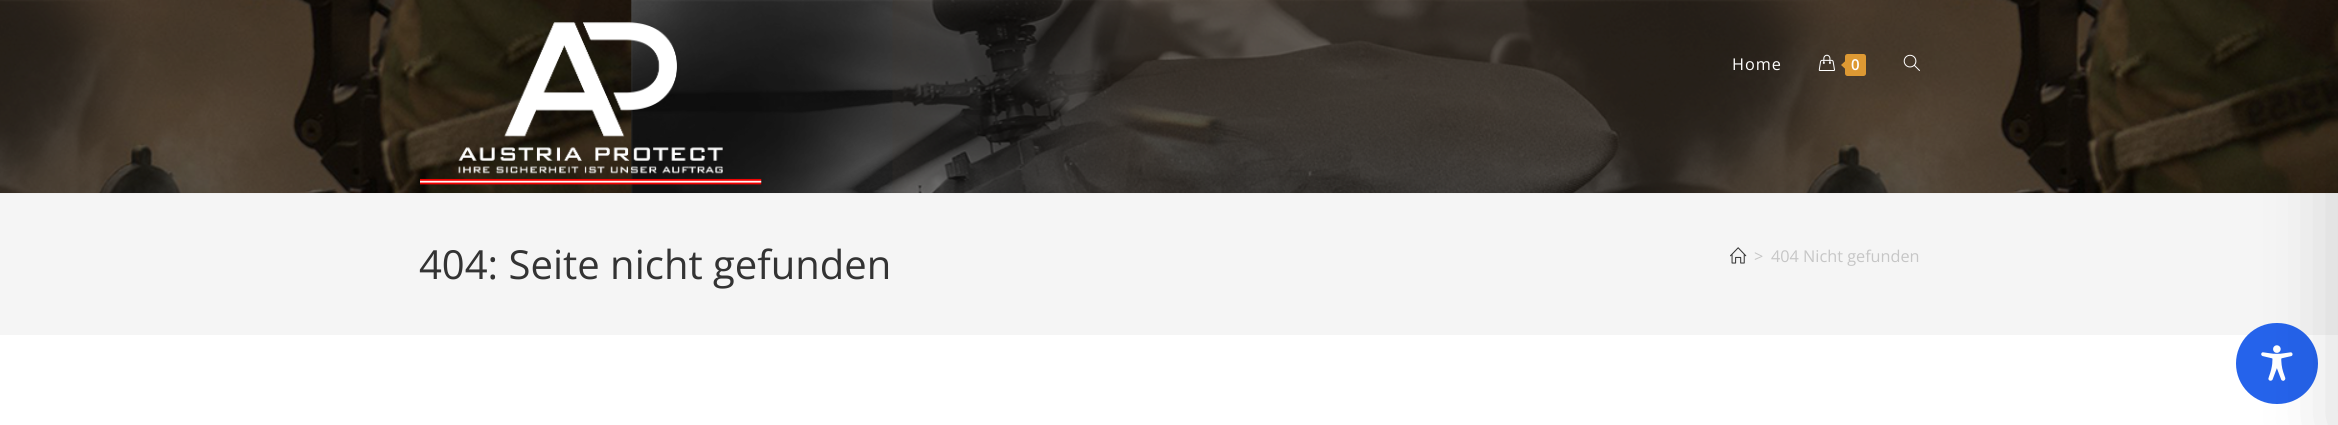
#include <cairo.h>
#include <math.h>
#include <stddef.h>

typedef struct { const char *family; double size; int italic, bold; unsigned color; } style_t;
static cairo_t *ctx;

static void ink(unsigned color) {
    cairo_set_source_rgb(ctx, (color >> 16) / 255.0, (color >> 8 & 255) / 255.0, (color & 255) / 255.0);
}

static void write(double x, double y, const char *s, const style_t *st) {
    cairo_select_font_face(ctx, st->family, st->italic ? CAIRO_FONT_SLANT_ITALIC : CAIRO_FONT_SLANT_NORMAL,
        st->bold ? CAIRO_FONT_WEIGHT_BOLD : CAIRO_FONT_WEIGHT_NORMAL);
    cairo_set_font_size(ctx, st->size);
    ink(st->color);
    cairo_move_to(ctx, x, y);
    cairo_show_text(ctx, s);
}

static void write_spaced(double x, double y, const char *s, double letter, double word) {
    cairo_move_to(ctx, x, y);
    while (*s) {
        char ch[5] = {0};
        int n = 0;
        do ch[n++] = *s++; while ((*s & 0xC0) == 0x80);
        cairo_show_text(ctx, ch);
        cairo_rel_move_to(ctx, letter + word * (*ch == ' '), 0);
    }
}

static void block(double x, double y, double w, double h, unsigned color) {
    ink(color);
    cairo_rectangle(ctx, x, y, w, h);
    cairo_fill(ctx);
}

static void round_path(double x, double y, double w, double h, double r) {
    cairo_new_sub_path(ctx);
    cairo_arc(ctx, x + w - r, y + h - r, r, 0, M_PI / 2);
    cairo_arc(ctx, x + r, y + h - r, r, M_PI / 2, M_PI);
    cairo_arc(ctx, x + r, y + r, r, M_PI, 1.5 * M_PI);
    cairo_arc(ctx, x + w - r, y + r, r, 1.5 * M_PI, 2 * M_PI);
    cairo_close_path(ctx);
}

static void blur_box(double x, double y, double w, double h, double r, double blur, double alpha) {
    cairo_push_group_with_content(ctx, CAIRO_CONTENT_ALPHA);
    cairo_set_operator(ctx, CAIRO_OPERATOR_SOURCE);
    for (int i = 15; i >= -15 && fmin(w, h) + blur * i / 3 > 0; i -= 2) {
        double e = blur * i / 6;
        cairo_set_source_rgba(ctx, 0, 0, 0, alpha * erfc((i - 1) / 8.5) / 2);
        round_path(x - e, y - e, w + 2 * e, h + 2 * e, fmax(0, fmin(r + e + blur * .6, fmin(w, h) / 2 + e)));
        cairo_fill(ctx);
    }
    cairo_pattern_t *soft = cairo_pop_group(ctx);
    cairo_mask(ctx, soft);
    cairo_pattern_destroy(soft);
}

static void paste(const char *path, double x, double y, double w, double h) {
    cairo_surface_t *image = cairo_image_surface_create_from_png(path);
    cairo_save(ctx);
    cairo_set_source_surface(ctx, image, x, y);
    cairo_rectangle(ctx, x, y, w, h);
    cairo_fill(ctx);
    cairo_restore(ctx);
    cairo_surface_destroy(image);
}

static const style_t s1 = {"Open Sans SemiBold", 15, 0, 0, 0xffffff};
static const style_t s2 = {"Open Sans", 40, 0, 0, 0x333333};
static const style_t s3 = {"Open Sans", 16.25, 0, 0, 0xc6c6c6};

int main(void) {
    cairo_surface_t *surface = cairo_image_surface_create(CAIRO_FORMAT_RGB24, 2338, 425);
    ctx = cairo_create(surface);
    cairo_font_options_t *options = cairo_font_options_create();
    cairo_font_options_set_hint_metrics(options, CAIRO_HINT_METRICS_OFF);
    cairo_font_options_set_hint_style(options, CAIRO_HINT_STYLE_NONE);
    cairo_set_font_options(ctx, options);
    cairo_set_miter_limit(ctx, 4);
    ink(0xffffff);
    cairo_paint(ctx);
    paste("pic1.png", 0, 0, 2338, 193);
    block(0, 193, 2338, 1, 0xf1f1f1);
    paste("pic2.png", 420, 22, 342, 163);
    cairo_select_font_face(ctx, "Open Sans", CAIRO_FONT_SLANT_NORMAL, CAIRO_FONT_WEIGHT_NORMAL);
    cairo_set_font_size(ctx, 16.25);
    ink(0xffffff);
    write_spaced(1732, 70, "Home", 1, 0);
    paste("pic3.png", 1818, 54, 17, 17);
    ink(0xdd9933);
    round_path(1845, 54, 21, 22, 2.5);
    cairo_fill(ctx);
    cairo_new_path(ctx);
    cairo_move_to(ctx, 1847.5, 59);
    cairo_line_to(ctx, 1847.5, 71);
    cairo_line_to(ctx, 1841, 65);
    cairo_close_path(ctx);
    cairo_fill(ctx);
    write(1851, 70, "0", &s1);
    paste("pic4.png", 1903, 54, 17, 17);
    block(0, 194, 2338, 141, 0xf5f5f5);
    write(419, 279, "404: Seite nicht gefunden", &s2);
    paste("pic5.png", 1730, 247, 17, 17);
    write(1754, 262, ">", &s3);
    write(1771, 262, "404 Nicht gefunden", &s3);
    ink(0x2563eb);
    round_path(2236, 323, 82, 81, 40.5);
    cairo_fill(ctx);
    paste("pic6.png", 2261, 345, 32, 36);
    ink(0x000000);
    blur_box(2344, 13, 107, 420, 0, 37.5, 0.2);
    cairo_surface_write_to_png(surface, "screenshot.png");
    cairo_font_options_destroy(options);
    cairo_destroy(ctx);
    cairo_surface_destroy(surface);
    return 0;
}
